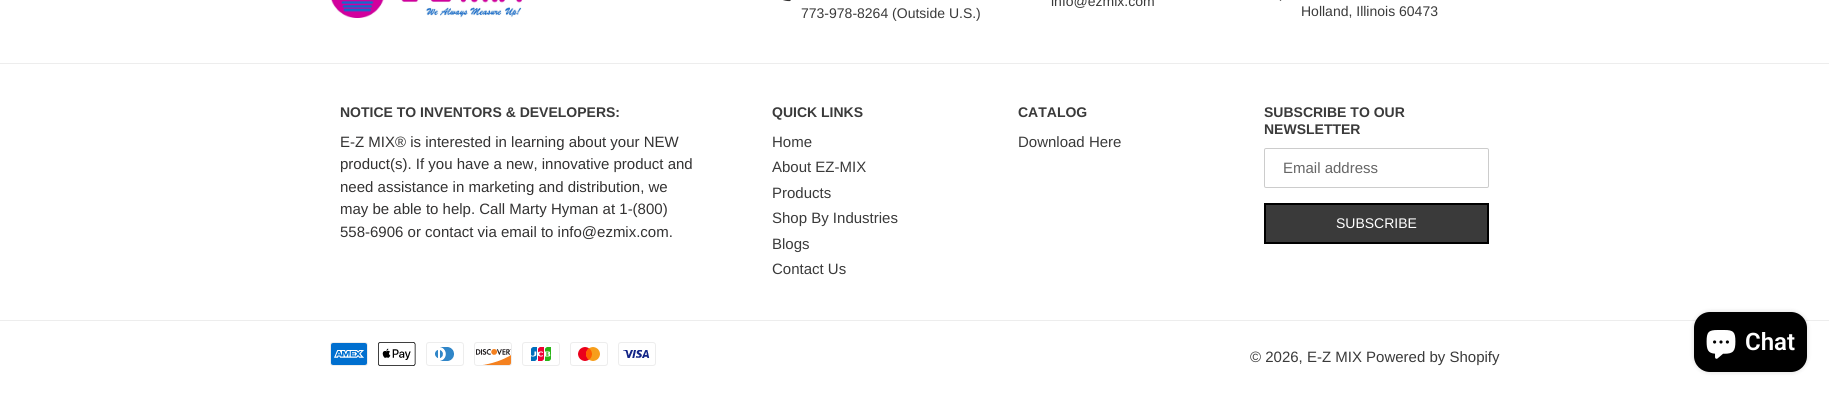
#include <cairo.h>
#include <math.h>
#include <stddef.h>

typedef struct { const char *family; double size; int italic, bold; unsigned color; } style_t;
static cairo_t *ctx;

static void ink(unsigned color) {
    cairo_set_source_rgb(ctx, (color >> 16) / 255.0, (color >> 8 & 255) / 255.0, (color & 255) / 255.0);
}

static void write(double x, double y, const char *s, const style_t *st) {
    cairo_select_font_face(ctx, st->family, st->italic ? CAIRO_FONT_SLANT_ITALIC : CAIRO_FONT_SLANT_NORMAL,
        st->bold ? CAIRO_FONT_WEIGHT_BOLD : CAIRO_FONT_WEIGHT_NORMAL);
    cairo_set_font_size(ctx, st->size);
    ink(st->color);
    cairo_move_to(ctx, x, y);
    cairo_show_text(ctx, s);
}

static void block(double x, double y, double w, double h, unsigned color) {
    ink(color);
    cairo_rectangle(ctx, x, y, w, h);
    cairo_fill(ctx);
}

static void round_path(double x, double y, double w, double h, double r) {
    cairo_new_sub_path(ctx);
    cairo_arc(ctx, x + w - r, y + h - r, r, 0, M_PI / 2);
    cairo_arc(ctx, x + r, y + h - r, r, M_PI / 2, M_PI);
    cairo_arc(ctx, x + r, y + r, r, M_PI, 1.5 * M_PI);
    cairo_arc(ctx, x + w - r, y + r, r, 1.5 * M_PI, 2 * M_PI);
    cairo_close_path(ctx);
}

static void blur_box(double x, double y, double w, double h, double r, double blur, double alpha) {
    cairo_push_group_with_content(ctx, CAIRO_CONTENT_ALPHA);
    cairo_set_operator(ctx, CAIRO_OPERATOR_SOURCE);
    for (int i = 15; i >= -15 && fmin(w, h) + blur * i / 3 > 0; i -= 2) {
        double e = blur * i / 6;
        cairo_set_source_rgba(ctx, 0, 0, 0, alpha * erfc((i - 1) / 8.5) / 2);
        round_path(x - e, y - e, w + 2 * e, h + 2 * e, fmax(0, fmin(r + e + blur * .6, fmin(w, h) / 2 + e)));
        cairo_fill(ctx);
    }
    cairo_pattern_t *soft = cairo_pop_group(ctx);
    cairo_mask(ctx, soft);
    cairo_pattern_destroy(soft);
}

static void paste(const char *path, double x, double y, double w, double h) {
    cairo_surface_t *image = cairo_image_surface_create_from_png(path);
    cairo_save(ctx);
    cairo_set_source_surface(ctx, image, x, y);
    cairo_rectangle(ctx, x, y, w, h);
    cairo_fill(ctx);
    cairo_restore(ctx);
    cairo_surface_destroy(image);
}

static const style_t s1 = {"Liberation Sans", 14, 0, 0, 0x3a3a3a};
static const style_t s2 = {"Liberation Sans", 14, 0, 1, 0x3a3a3a};
static const style_t s3 = {"Liberation Sans", 15, 0, 0, 0x333232};
static const style_t s4 = {"Liberation Sans", 15, 0, 0, 0x3a3a3a};
static const style_t s5 = {"Liberation Sans", 15, 0, 0, 0x666666};
static const style_t s6 = {"Liberation Sans", 14, 0, 0, 0xffffff};
static const style_t s7 = {"Roboto SemiBold", 24, 0, 0, 0xffffff};

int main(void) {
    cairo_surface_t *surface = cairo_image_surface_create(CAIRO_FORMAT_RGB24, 1829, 393);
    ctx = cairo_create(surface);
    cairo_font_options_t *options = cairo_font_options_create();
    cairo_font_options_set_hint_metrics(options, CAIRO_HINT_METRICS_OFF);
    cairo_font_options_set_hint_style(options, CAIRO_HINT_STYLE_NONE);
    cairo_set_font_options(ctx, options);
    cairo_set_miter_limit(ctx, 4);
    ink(0xffffff);
    cairo_paint(ctx);
    block(0, 63, 1829, 1, 0xededed);
    paste("pic1.png", 331, 0, 192, 18);
    write(1051, 6, "info@ezmix.com", &s1);
    paste("pic2.png", 783, 0, 8, 2);
    write(801, 18, "773-978-8264 (Outside U.S.)", &s1);
    paste("pic3.png", 1279, 0, 3, 1);
    write(1301, 16, "Holland, Illinois 60473", &s1);
    block(0, 320, 1829, 1, 0xededed);
    write(340, 117, "NOTICE TO INVENTORS & DEVELOPERS:", &s2);
    write(340, 147, "E-Z MIX® is interested in learning about your NEW", &s3);
    write(340, 169, "product(s). If you have a new, innovative product and", &s3);
    write(340, 192, "need assistance in marketing and distribution, we", &s3);
    write(340, 214, "may be able to help. Call Marty Hyman at 1-(800)", &s3);
    write(340, 237, "558-6906 or contact via email to info@ezmix.com.", &s3);
    write(772, 117, "QUICK LINKS", &s2);
    write(772, 147, "Home", &s4);
    write(772, 172, "About EZ-MIX", &s4);
    write(772, 198, "Products", &s4);
    write(772, 223, "Shop By Industries", &s4);
    write(772, 249, "Blogs", &s4);
    write(772, 274, "Contact Us", &s4);
    write(1018, 117, "CATALOG", &s2);
    write(1018, 147, "Download Here", &s4);
    write(1264, 117, "SUBSCRIBE TO OUR", &s2);
    write(1264, 134, "NEWSLETTER", &s2);
    round_path(1264.5, 148.5, 224, 39, 1.5);
    ink(0xcccccc);
    cairo_set_line_width(ctx, 1);
    cairo_stroke(ctx);
    write(1283, 173, "Email address", &s5);
    ink(0x3a3a3a);
    cairo_rectangle(ctx, 1265, 204, 223, 39);
    cairo_fill_preserve(ctx);
    ink(0x000000);
    cairo_set_line_width(ctx, 2);
    cairo_stroke(ctx);
    write(1336, 228, "SUBSCRIBE", &s6);
    paste("pic4.png", 330, 342, 38, 24);
    paste("pic5.png", 378, 342, 38, 24);
    paste("pic6.png", 426, 342, 38, 24);
    paste("pic7.png", 474, 342, 38, 24);
    paste("pic8.png", 522, 342, 38, 24);
    paste("pic9.png", 570, 342, 38, 24);
    paste("pic10.png", 618, 342, 38, 24);
    write(1250, 362, "© 2026, E-Z MIX Powered by Shopify", &s4);
    ink(0x000000);
    blur_box(1694, 312, 113, 60, 16, 2.5, 0.15);
    ink(0x000000);
    round_path(1694, 312, 113, 60, 16);
    cairo_fill(ctx);
    paste("pic11.png", 1706, 330, 30, 29);
    write(1745, 350, "Chat", &s7);
    cairo_surface_write_to_png(surface, "screenshot.png");
    cairo_font_options_destroy(options);
    cairo_destroy(ctx);
    cairo_surface_destroy(surface);
    return 0;
}
